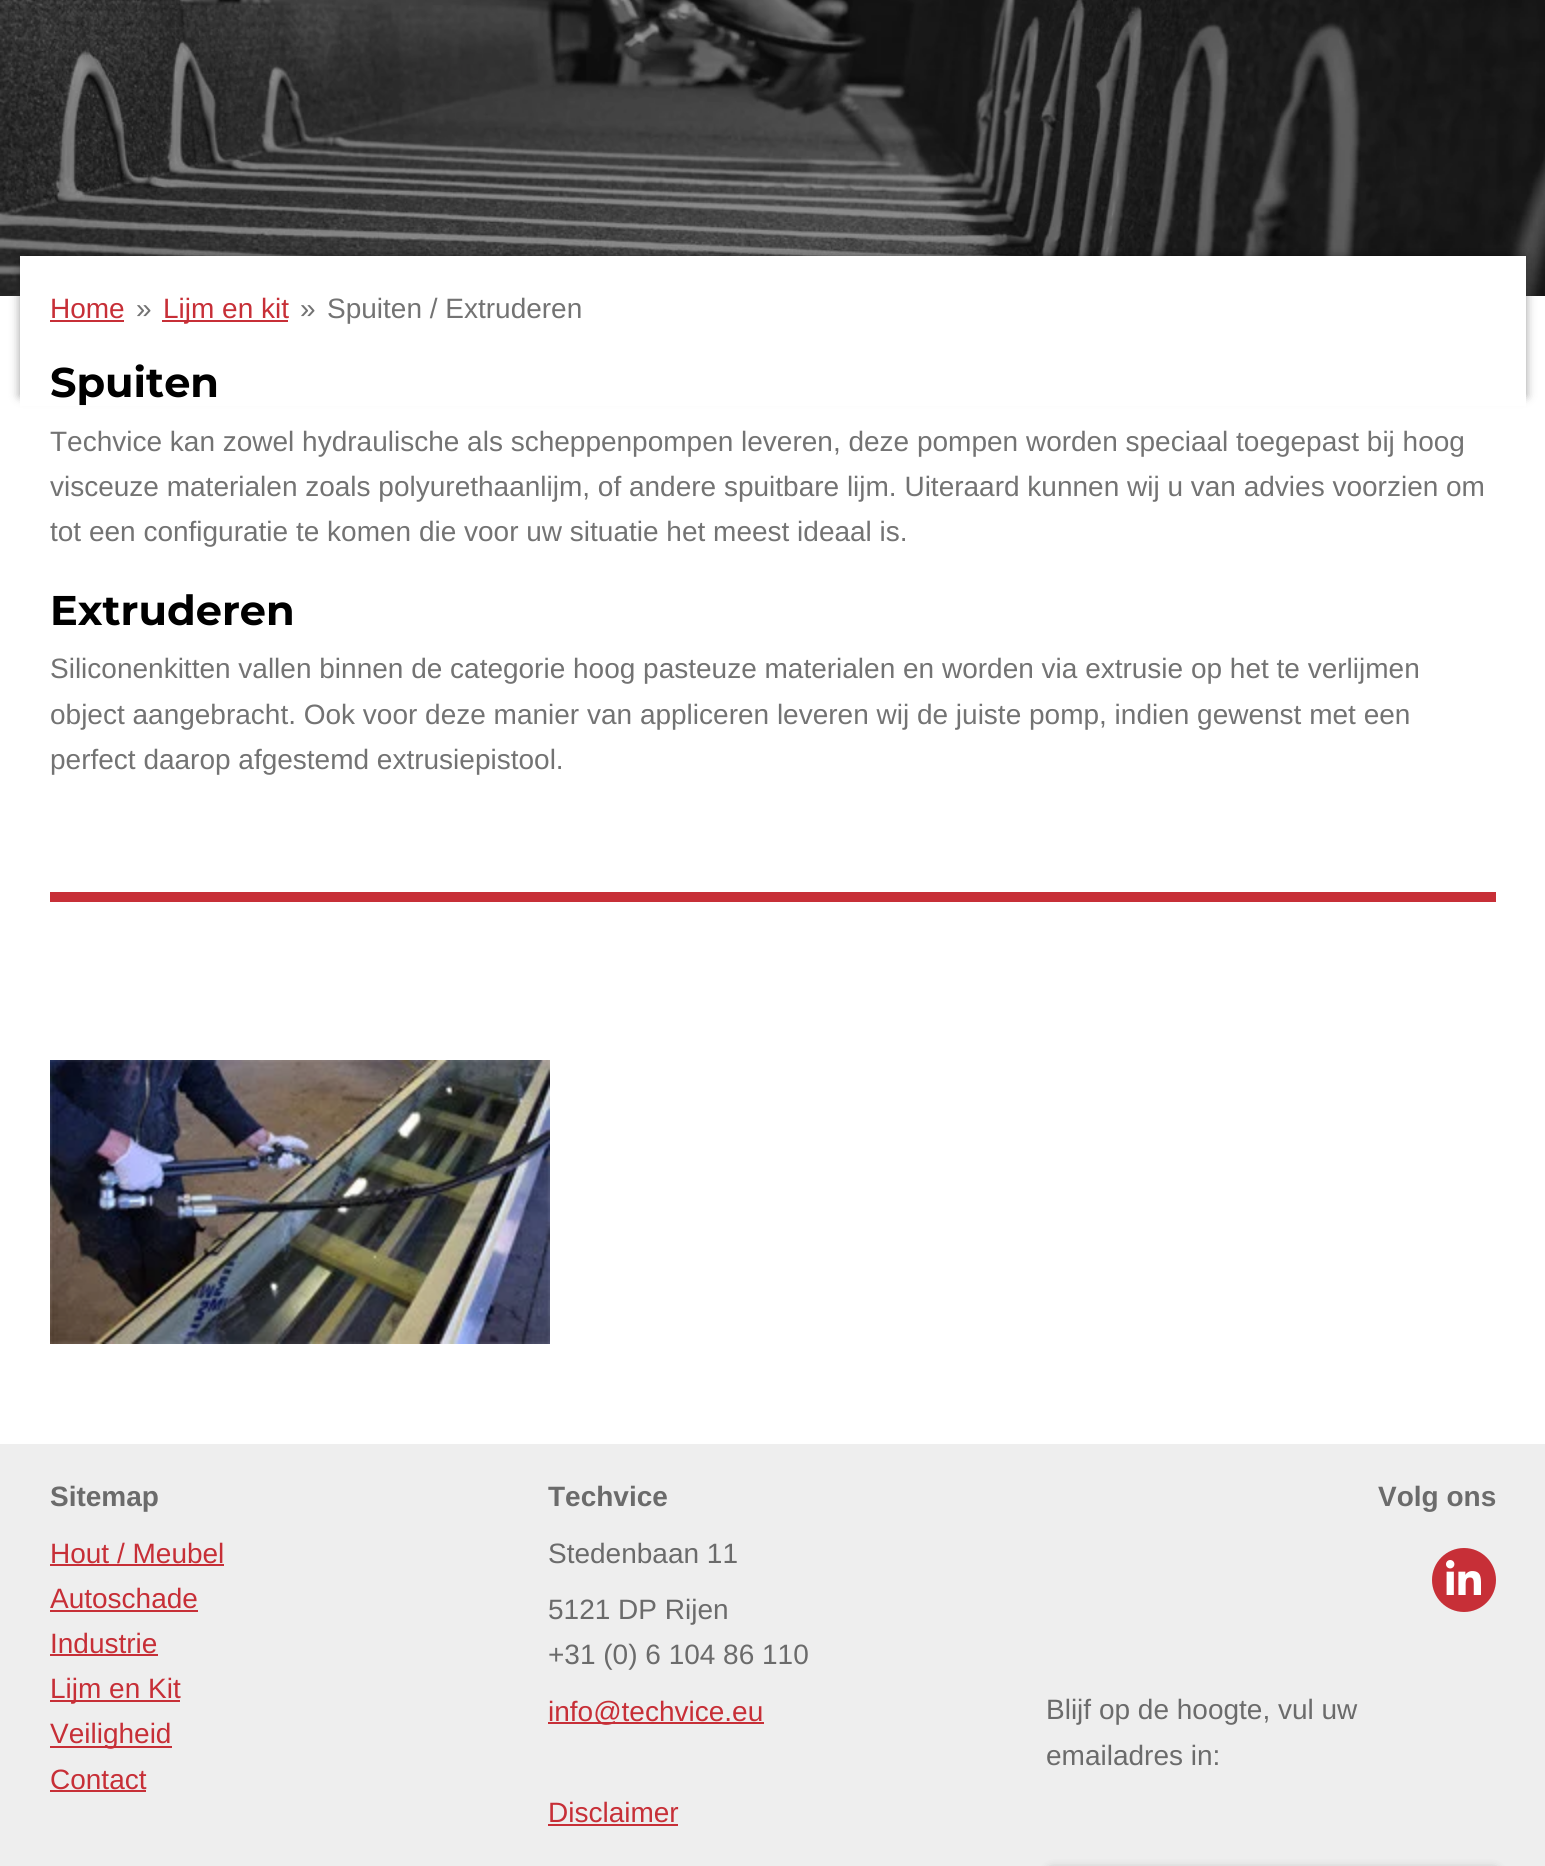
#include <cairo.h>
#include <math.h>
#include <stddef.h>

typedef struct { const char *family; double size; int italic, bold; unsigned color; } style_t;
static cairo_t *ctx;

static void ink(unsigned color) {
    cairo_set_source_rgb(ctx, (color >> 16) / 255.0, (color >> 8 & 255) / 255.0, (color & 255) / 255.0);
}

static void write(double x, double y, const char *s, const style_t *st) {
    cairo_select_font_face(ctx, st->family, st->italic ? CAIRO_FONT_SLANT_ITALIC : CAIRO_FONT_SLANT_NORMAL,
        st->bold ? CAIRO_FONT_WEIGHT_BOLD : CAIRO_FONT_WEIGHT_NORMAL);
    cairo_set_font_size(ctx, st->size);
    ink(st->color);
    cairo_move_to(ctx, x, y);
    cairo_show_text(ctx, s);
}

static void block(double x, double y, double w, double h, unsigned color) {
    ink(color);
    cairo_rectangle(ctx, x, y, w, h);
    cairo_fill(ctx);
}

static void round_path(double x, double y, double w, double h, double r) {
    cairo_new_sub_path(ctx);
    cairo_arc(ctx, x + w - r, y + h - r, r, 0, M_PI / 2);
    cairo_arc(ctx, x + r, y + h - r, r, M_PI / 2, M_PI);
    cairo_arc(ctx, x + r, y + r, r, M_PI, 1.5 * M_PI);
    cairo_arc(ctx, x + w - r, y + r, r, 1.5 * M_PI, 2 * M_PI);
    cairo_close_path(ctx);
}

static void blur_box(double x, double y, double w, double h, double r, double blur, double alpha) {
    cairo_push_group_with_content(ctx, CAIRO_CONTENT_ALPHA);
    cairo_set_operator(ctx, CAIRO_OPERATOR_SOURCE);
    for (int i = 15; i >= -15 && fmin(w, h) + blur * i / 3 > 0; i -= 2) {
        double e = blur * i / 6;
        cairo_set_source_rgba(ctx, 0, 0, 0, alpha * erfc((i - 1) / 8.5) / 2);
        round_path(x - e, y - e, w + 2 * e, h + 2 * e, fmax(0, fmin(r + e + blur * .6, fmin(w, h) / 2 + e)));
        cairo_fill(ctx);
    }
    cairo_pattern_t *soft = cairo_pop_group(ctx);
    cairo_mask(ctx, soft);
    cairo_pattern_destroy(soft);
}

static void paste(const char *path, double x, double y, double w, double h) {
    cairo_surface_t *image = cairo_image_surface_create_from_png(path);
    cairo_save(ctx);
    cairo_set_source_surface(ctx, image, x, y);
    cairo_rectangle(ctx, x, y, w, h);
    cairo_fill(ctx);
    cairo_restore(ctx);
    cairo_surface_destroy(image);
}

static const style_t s1 = {"Liberation Sans", 28, 0, 0, 0xc72f37};
static const style_t s2 = {"Liberation Sans", 28, 0, 0, 0x737373};
static const style_t s3 = {"Montserrat", 41.5, 0, 1, 0x000000};
static const style_t s4 = {"Liberation Sans", 28, 0, 1, 0x6b6b6b};
static const style_t s5 = {"Liberation Sans", 28, 0, 0, 0x6b6b6b};

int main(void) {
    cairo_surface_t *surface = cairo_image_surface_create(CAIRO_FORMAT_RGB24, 1545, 1866);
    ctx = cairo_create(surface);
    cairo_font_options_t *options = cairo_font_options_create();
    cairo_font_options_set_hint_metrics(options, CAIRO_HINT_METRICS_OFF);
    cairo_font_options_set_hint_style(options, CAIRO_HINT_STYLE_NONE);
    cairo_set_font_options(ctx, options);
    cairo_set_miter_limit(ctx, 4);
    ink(0xffffff);
    cairo_paint(ctx);
    paste("pic1.png", 0, 0, 1545, 296);
    ink(0x000000);
    blur_box(20, 256, 1506, 140, 0, 5, 0.4);
    block(20, 256, 1506, 150, 0xffffff);
    write(50, 318, "Home", &s1);
    block(50, 320, 74, 2, 0xc72f37);
    write(136, 318, "»", &s2);
    block(162, 320, 126, 2, 0xc72f37);
    write(163, 318, "Lijm en kit", &s1);
    write(300, 318, "»", &s2);
    write(327, 318, "Spuiten / Extruderen", &s2);
    write(50, 397, "Spuiten", &s3);
    write(50, 451, "Techvice kan zowel hydraulische als scheppenpompen leveren, deze pompen worden speciaal toegepast bij hoog", &s2);
    write(50, 496, "visceuze materialen zoals polyurethaanlijm, of andere spuitbare lijm. Uiteraard kunnen wij u van advies voorzien om", &s2);
    write(50, 541, "tot een configuratie te komen die voor uw situatie het meest ideaal is.", &s2);
    write(50, 625, "Extruderen", &s3);
    write(50, 678, "Siliconenkitten vallen binnen de categorie hoog pasteuze materialen en worden via extrusie op het te verlijmen", &s2);
    write(50, 724, "object aangebracht. Ook voor deze manier van appliceren leveren wij de juiste pomp, indien gewenst met een", &s2);
    write(50, 769, "perfect daarop afgestemd extrusiepistool.", &s2);
    block(50, 892, 1446, 10, 0xc72f37);
    paste("pic2.png", 50, 1060, 500, 284);
    block(0, 1444, 1545, 422, 0xeeeeee);
    write(50, 1506, "Sitemap", &s4);
    write(50, 1563, "Hout / Meubel", &s1);
    block(50, 1564, 174, 2, 0xc72f37);
    write(50, 1608, "Autoschade", &s1);
    block(50, 1610, 148, 2, 0xc72f37);
    write(50, 1653, "Industrie", &s1);
    block(50, 1654, 108, 2, 0xc72f37);
    block(50, 1700, 130, 2, 0xc72f37);
    write(50, 1698, "Lijm en Kit", &s1);
    block(50, 1746, 122, 2, 0xc72f37);
    write(50, 1743, "Veiligheid", &s1);
    write(50, 1789, "Contact", &s1);
    block(50, 1790, 96, 2, 0xc72f37);
    write(548, 1506, "Techvice", &s4);
    write(548, 1563, "Stedenbaan 11", &s5);
    write(548, 1619, "5121 DP Rijen", &s5);
    write(548, 1664, "+31 (0) 6 104 86 110", &s5);
    block(548, 1722, 216, 2, 0xc72f37);
    write(548, 1721, "info@techvice.eu", &s1);
    write(548, 1822, "Disclaimer", &s1);
    block(548, 1824, 130, 2, 0xc72f37);
    write(1378, 1506, "Volg ons", &s4);
    ink(0xc72f37);
    cairo_new_path(ctx);
    cairo_arc(ctx, 1464, 1580, 32, 0, 2 * M_PI);
    cairo_fill(ctx);
    paste("pic3.png", 1446, 1560, 35, 35);
    write(1046, 1719, "Blijf op de hoogte, vul uw", &s5);
    write(1046, 1765, "emailadres in:", &s5);
    ink(0x000000);
    blur_box(1048, 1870, 450, 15, 4, 5, 0.35);
    cairo_surface_write_to_png(surface, "screenshot.png");
    cairo_font_options_destroy(options);
    cairo_destroy(ctx);
    cairo_surface_destroy(surface);
    return 0;
}
